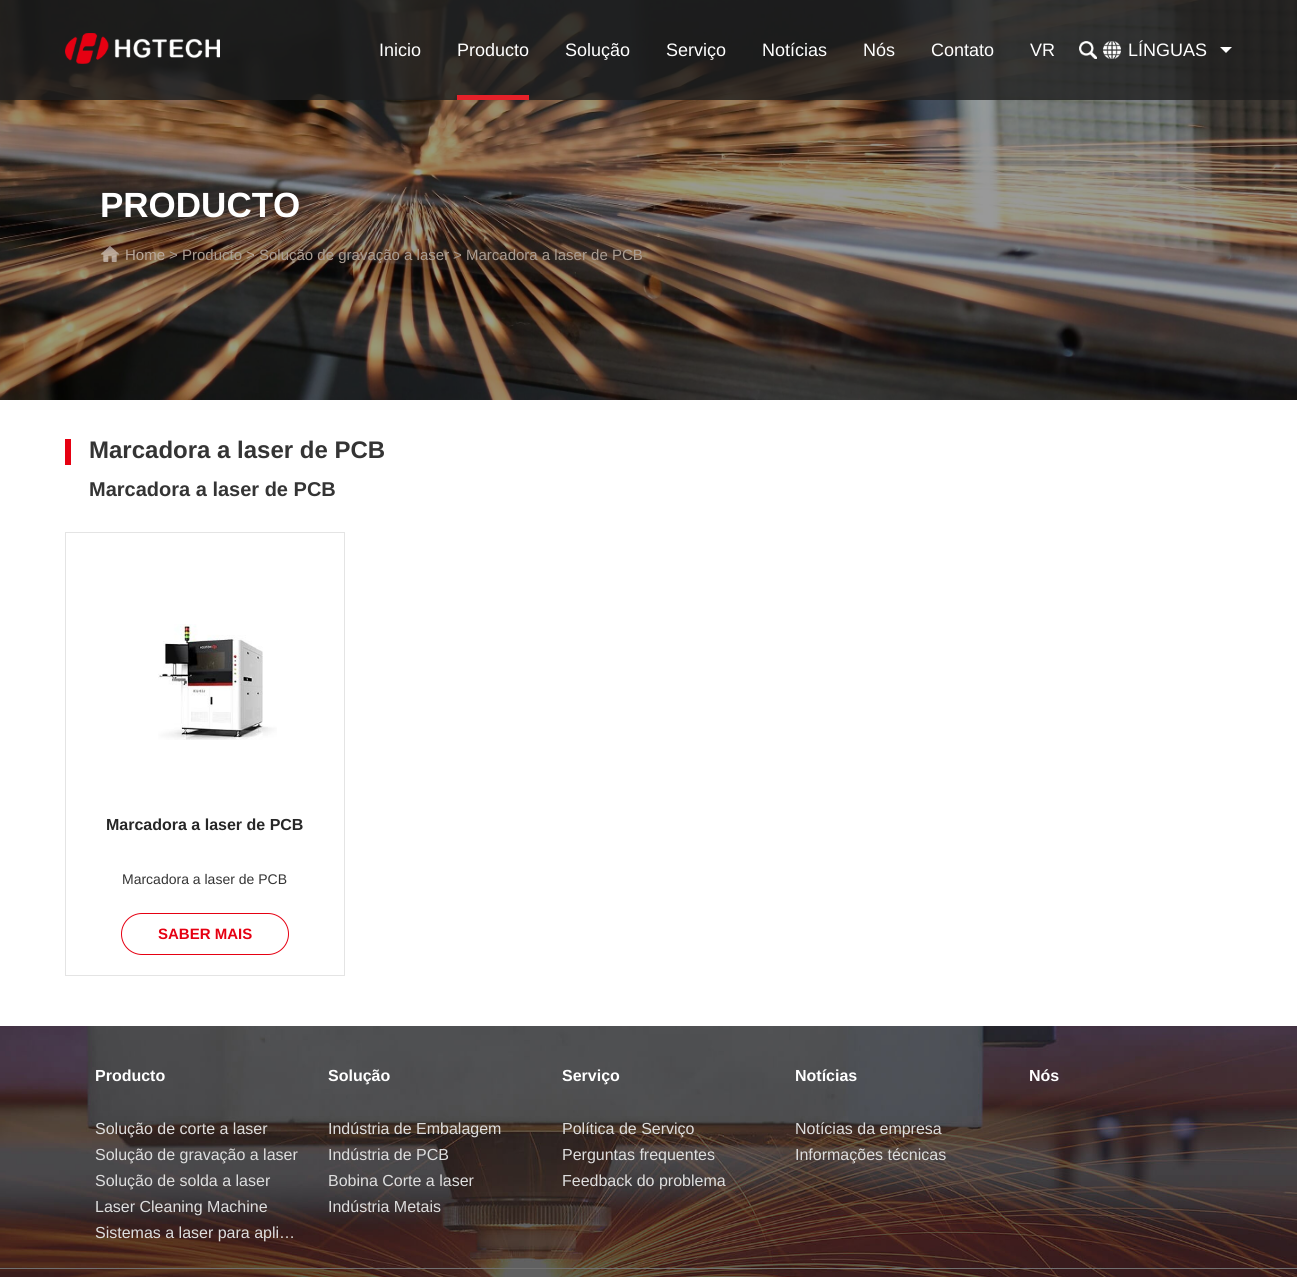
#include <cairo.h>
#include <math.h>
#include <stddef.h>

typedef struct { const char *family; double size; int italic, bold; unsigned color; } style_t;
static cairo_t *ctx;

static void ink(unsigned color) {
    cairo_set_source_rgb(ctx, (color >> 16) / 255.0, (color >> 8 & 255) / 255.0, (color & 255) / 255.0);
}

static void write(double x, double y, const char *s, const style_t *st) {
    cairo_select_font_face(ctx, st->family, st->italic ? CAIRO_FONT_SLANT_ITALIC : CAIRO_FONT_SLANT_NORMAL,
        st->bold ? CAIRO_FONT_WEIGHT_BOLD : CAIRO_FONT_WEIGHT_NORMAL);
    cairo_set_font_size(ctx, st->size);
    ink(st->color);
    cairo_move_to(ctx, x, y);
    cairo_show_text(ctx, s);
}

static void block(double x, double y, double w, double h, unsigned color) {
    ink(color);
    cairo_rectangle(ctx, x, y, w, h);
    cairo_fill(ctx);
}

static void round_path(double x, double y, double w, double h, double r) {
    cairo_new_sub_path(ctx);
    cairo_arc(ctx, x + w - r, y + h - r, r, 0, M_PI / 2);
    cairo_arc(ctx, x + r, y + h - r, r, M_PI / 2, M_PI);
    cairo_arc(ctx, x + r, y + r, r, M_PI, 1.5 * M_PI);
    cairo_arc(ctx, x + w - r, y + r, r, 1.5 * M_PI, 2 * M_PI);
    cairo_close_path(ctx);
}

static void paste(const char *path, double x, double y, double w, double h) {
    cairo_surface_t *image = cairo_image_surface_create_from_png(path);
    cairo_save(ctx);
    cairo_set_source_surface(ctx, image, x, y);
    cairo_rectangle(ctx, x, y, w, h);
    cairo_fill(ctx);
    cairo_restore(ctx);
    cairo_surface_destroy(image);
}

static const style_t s1 = {"Liberation Sans", 18, 0, 0, 0xffffff};
static const style_t s2 = {"Liberation Sans", 35, 0, 1, 0xffffff};
static const style_t s3 = {"Liberation Sans", 15, 0, 0, 0xb9a89a};
static const style_t s4 = {"Liberation Sans", 15, 0, 0, 0xa4978e};
static const style_t s5 = {"Liberation Sans", 15, 0, 0, 0xaa9d93};
static const style_t s6 = {"Liberation Sans", 24, 0, 1, 0x343434};
static const style_t s7 = {"Liberation Sans", 20, 0, 1, 0x343434};
static const style_t s8 = {"Liberation Sans", 16, 0, 1, 0x272727};
static const style_t s9 = {"Liberation Sans", 14, 0, 0, 0x343434};
static const style_t s10 = {"Liberation Sans", 15, 0, 1, 0xe60012};
static const style_t s11 = {"Liberation Sans", 16, 0, 1, 0xffffff};
static const style_t s12 = {"Liberation Sans", 16, 0, 0, 0xdedede};

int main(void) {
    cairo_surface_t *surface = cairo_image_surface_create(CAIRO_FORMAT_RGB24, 1297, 1277);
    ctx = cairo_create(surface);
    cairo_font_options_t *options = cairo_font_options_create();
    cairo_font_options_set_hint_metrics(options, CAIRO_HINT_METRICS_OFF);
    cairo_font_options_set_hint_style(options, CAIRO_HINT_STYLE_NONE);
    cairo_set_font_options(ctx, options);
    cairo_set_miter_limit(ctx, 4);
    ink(0xffffff);
    cairo_paint(ctx);
    paste("pic4.png", 0, 0, 1297, 400);
    cairo_set_source_rgba(ctx, 0.118, 0.118, 0.118, 0.8);
    cairo_rectangle(ctx, 0, 0, 1297, 100);
    cairo_fill(ctx);
    paste("pic1.png", 65, 33, 155, 31);
    write(379, 56, "Inicio", &s1);
    write(457, 56, "Producto", &s1);
    block(457, 95, 72, 5, 0xe62129);
    write(565, 56, "Solução", &s1);
    write(666, 56, "Serviço", &s1);
    write(762, 56, "Notícias", &s1);
    write(863, 56, "Nós", &s1);
    write(931, 56, "Contato", &s1);
    write(1030, 56, "VR", &s1);
    paste("pic2.png", 1079, 41, 18, 18);
    paste("pic3.png", 1103, 41, 18, 18);
    write(1128, 56, "LÍNGUAS", &s1);
    cairo_new_path(ctx);
    cairo_move_to(ctx, 1220, 47);
    cairo_line_to(ctx, 1232, 47);
    cairo_line_to(ctx, 1226, 53);
    cairo_close_path(ctx);
    cairo_fill(ctx);
    write(100, 217, "PRODUCTO", &s2);
    paste("pic5.png", 100, 246, 20, 16);
    write(125, 260, "Home", &s3);
    write(169, 260, ">", &s4);
    write(182, 260, "Producto", &s5);
    write(246, 260, ">", &s3);
    write(259, 260, "Solução de gravação a laser", &s5);
    write(453, 260, ">", &s5);
    write(466, 260, "Marcadora a laser de PCB", &s5);
    block(65, 439, 6, 26, 0xe60012);
    write(89, 458, "Marcadora a laser de PCB", &s6);
    write(89, 496, "Marcadora a laser de PCB", &s7);
    cairo_rectangle(ctx, 65.5, 532.5, 279, 443);
    ink(0xe4e4e4);
    cairo_set_line_width(ctx, 1);
    cairo_stroke(ctx);
    paste("pic6.png", 158, 624, 119, 116);
    write(106, 830, "Marcadora a laser de PCB", &s8);
    write(122, 884, "Marcadora a laser de PCB", &s9);
    round_path(121.5, 913.5, 167, 41, 20.5);
    ink(0xe60012);
    cairo_stroke(ctx);
    write(158, 939, "SABER MAIS", &s10);
    paste("pic7.png", 0, 1026, 1297, 251);
    block(0, 1268, 1297, 1, 0x717171);
    write(95, 1081, "Producto", &s11);
    write(95, 1134, "Solução de corte a laser", &s12);
    write(95, 1160, "Solução de gravação a laser", &s12);
    write(95, 1186, "Solução de solda a laser", &s12);
    write(95, 1212, "Laser Cleaning Machine", &s12);
    write(95, 1238, "Sistemas a laser para apli…", &s12);
    write(328, 1081, "Solução", &s11);
    write(328, 1134, "Indústria de Embalagem", &s12);
    write(328, 1160, "Indústria de PCB", &s12);
    write(328, 1186, "Bobina Corte a laser", &s12);
    write(328, 1212, "Indústria Metais", &s12);
    write(562, 1081, "Serviço", &s11);
    write(562, 1134, "Política de Serviço", &s12);
    write(562, 1160, "Perguntas frequentes", &s12);
    write(562, 1186, "Feedback do problema", &s12);
    write(795, 1081, "Notícias", &s11);
    write(795, 1134, "Notícias da empresa", &s12);
    write(795, 1160, "Informações técnicas", &s12);
    write(1029, 1081, "Nós", &s11);
    cairo_surface_write_to_png(surface, "screenshot.png");
    cairo_font_options_destroy(options);
    cairo_destroy(ctx);
    cairo_surface_destroy(surface);
    return 0;
}
